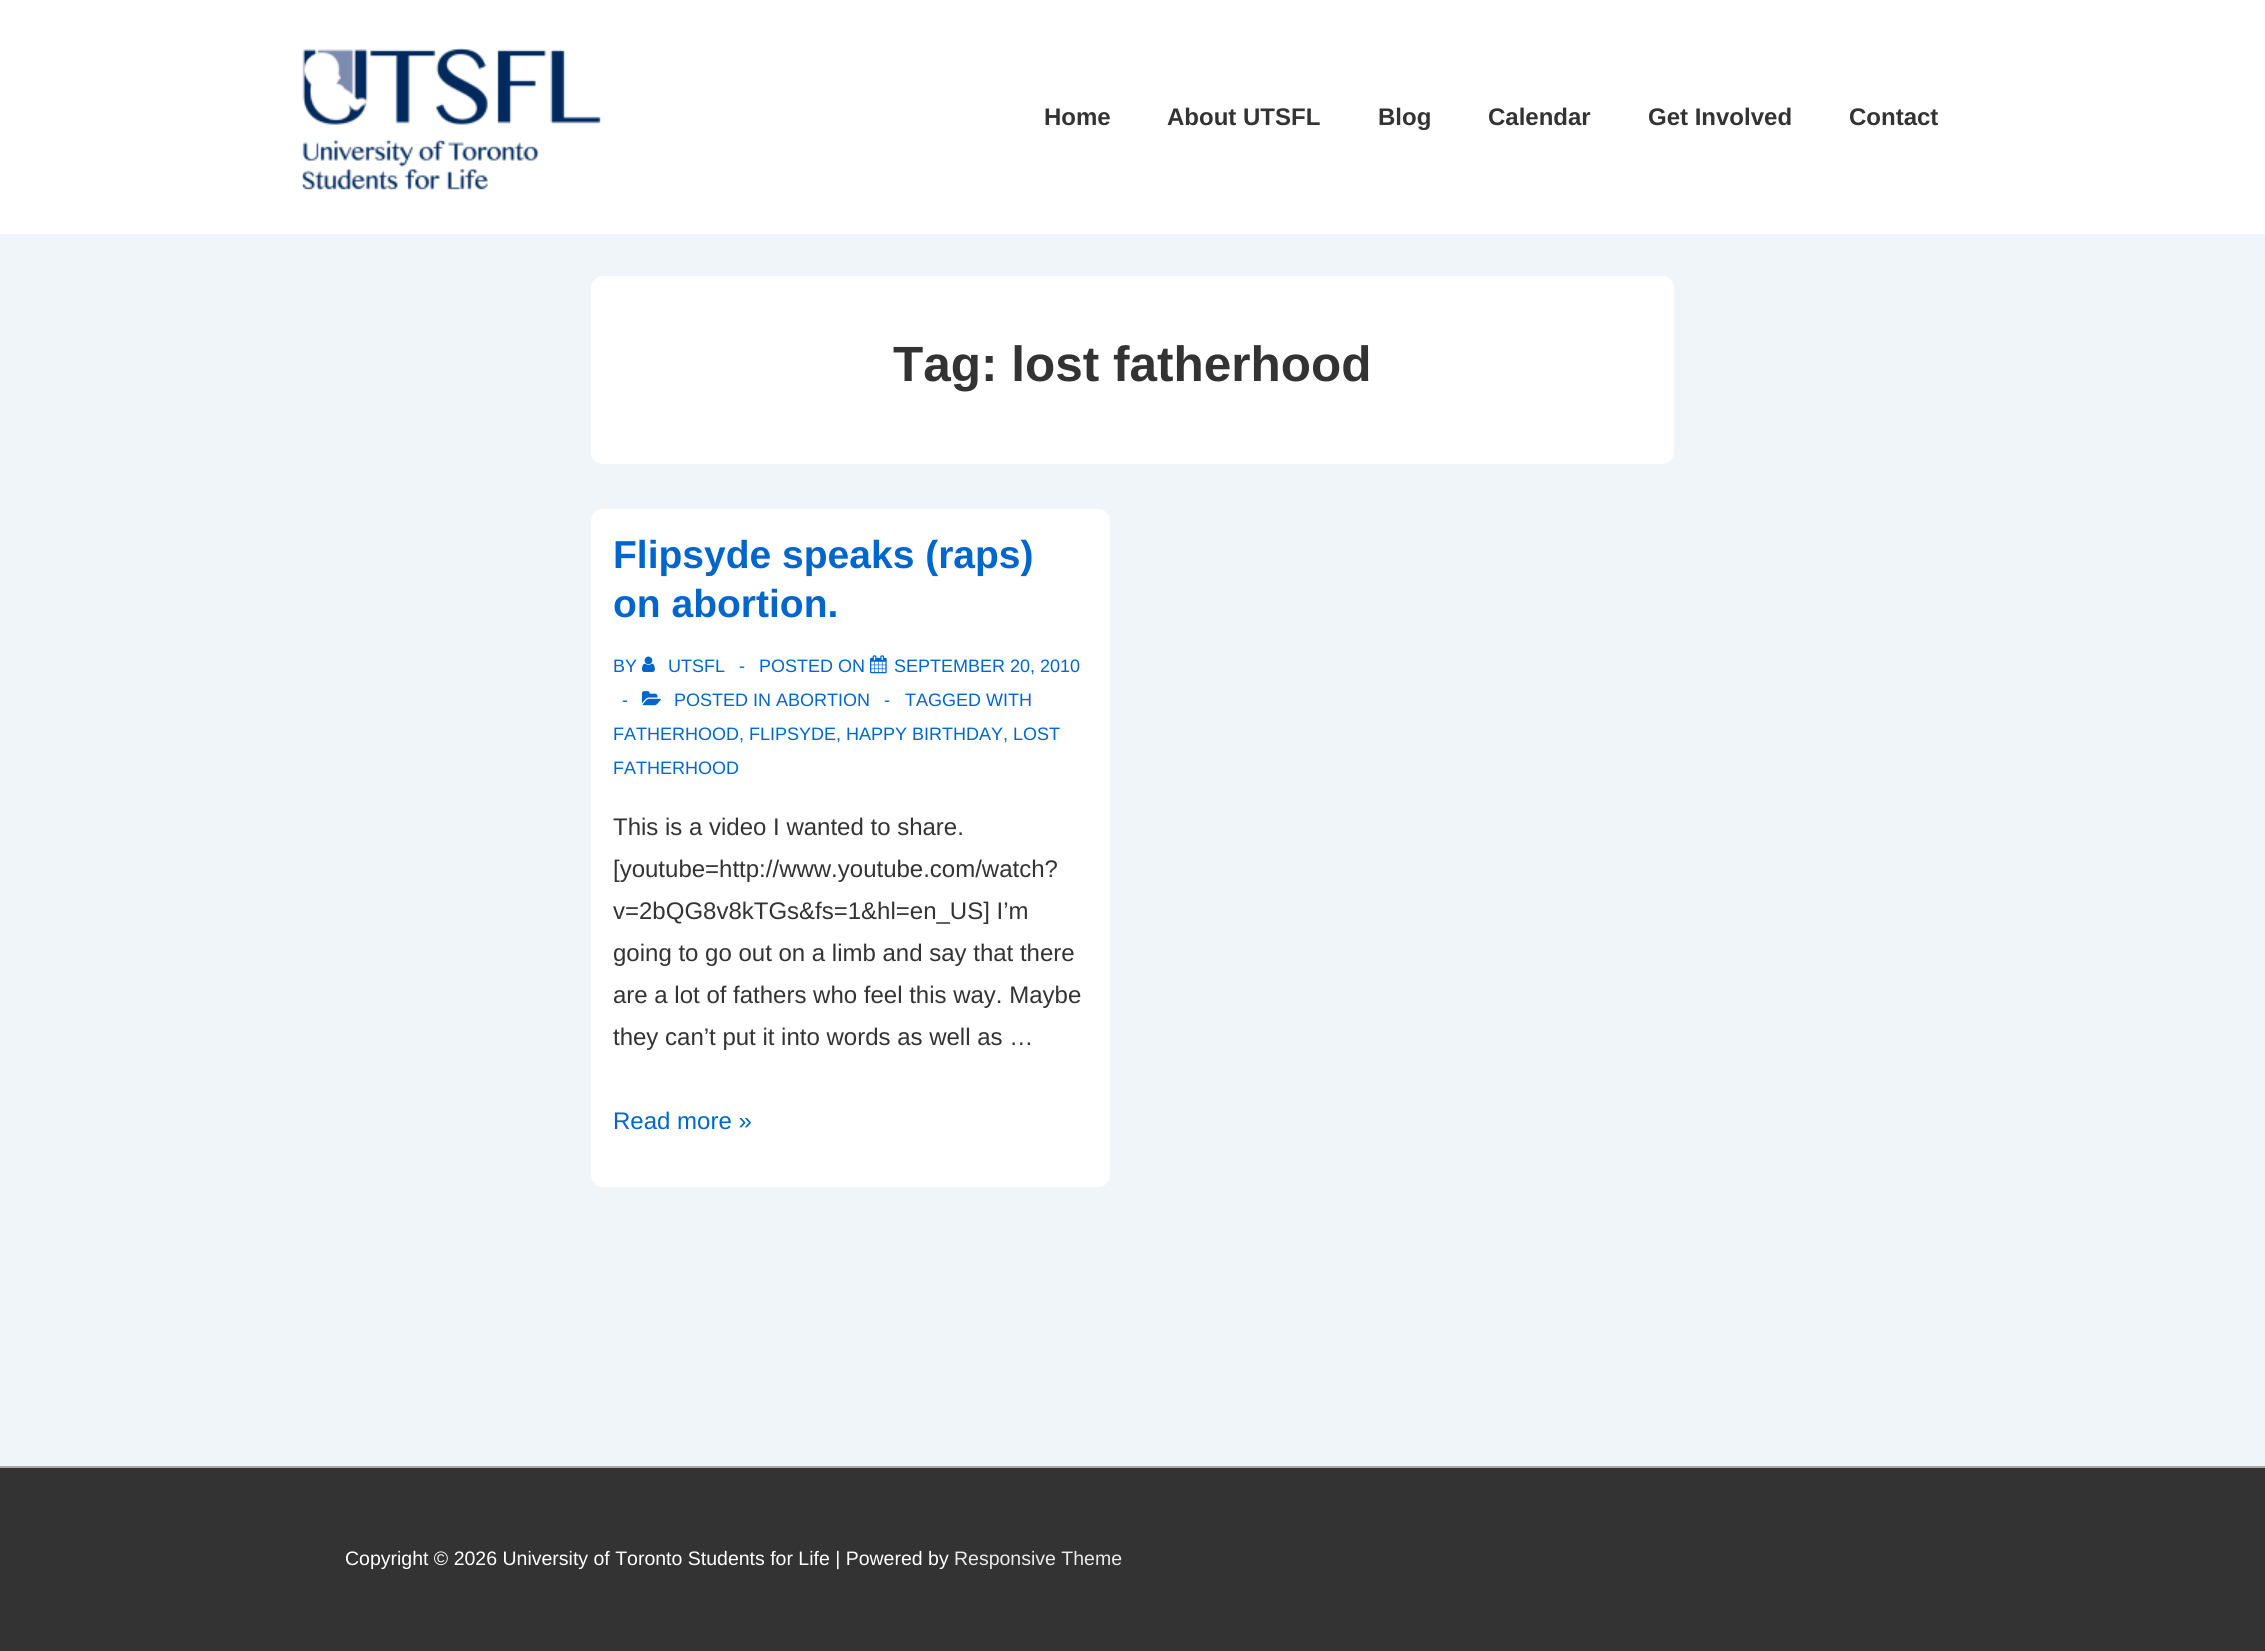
#include <cairo.h>
#include <math.h>
#include <stddef.h>

typedef struct { const char *family; double size; int italic, bold; unsigned color; } style_t;
static cairo_t *ctx;

static void ink(unsigned color) {
    cairo_set_source_rgb(ctx, (color >> 16) / 255.0, (color >> 8 & 255) / 255.0, (color & 255) / 255.0);
}

static void write(double x, double y, const char *s, const style_t *st) {
    cairo_select_font_face(ctx, st->family, st->italic ? CAIRO_FONT_SLANT_ITALIC : CAIRO_FONT_SLANT_NORMAL,
        st->bold ? CAIRO_FONT_WEIGHT_BOLD : CAIRO_FONT_WEIGHT_NORMAL);
    cairo_set_font_size(ctx, st->size);
    ink(st->color);
    cairo_move_to(ctx, x, y);
    cairo_show_text(ctx, s);
}

static void block(double x, double y, double w, double h, unsigned color) {
    ink(color);
    cairo_rectangle(ctx, x, y, w, h);
    cairo_fill(ctx);
}

static void round_path(double x, double y, double w, double h, double r) {
    cairo_new_sub_path(ctx);
    cairo_arc(ctx, x + w - r, y + h - r, r, 0, M_PI / 2);
    cairo_arc(ctx, x + r, y + h - r, r, M_PI / 2, M_PI);
    cairo_arc(ctx, x + r, y + r, r, M_PI, 1.5 * M_PI);
    cairo_arc(ctx, x + w - r, y + r, r, 1.5 * M_PI, 2 * M_PI);
    cairo_close_path(ctx);
}

static void paste(const char *path, double x, double y, double w, double h) {
    cairo_surface_t *image = cairo_image_surface_create_from_png(path);
    cairo_save(ctx);
    cairo_set_source_surface(ctx, image, x, y);
    cairo_rectangle(ctx, x, y, w, h);
    cairo_fill(ctx);
    cairo_restore(ctx);
    cairo_surface_destroy(image);
}

static const style_t s1 = {"Liberation Sans", 24, 0, 1, 0x333333};
static const style_t s2 = {"Liberation Sans", 49.5, 0, 1, 0x333333};
static const style_t s3 = {"Liberation Sans", 39, 0, 1, 0x0066cc};
static const style_t s4 = {"Liberation Sans", 18, 0, 0, 0x0066cc};
static const style_t s5 = {"Liberation Sans", 24, 0, 0, 0x333333};
static const style_t s6 = {"Liberation Sans", 24, 0, 0, 0x0066cc};
static const style_t s7 = {"Liberation Sans", 19.5, 0, 0, 0xffffff};
static const style_t s8 = {"Liberation Sans", 19.5, 0, 0, 0xeaeaea};

int main(void) {
    cairo_surface_t *surface = cairo_image_surface_create(CAIRO_FORMAT_RGB24, 2265, 1651);
    ctx = cairo_create(surface);
    cairo_font_options_t *options = cairo_font_options_create();
    cairo_font_options_set_hint_metrics(options, CAIRO_HINT_METRICS_OFF);
    cairo_font_options_set_hint_style(options, CAIRO_HINT_STYLE_NONE);
    cairo_set_font_options(ctx, options);
    cairo_set_miter_limit(ctx, 4);
    ink(0xf0f5fa);
    cairo_paint(ctx);
    block(0, 0, 2265, 234, 0xffffff);
    paste("pic1.png", 301, 48, 300, 142);
    write(1044, 125, "Home", &s1);
    write(1167, 125, "About UTSFL", &s1);
    write(1378, 125, "Blog", &s1);
    write(1488, 125, "Calendar", &s1);
    write(1648, 125, "Get Involved", &s1);
    write(1849, 125, "Contact", &s1);
    ink(0xffffff);
    round_path(591, 276, 1083, 188, 12);
    cairo_fill(ctx);
    write(893, 381, "Tag: lost fatherhood", &s2);
    ink(0xffffff);
    round_path(591, 509, 519, 678, 12);
    cairo_fill(ctx);
    write(613, 568, "Flipsyde speaks (raps)", &s3);
    write(613, 617, "on abortion.", &s3);
    write(613, 672, "BY", &s4);
    paste("pic2.png", 642, 656, 13, 16);
    write(668, 672, "UTSFL", &s4);
    write(739, 672, "-", &s4);
    write(759, 672, "POSTED ON", &s4);
    paste("pic3.png", 870, 655, 17, 19);
    write(894, 672, "SEPTEMBER 20, 2010", &s4);
    write(622, 706, "-", &s4);
    paste("pic4.png", 642, 691, 19, 15);
    write(674, 706, "POSTED IN ABORTION", &s4);
    write(884, 706, "-", &s4);
    write(905, 706, "TAGGED WITH", &s4);
    write(613, 740, "FATHERHOOD, FLIPSYDE, HAPPY BIRTHDAY, LOST", &s4);
    write(613, 774, "FATHERHOOD", &s4);
    write(613, 835, "This is a video I wanted to share.", &s5);
    write(613, 877, "[youtube=http://www.youtube.com/watch?", &s5);
    write(613, 919, "v=2bQG8v8kTGs&fs=1&hl=en_US] I’m", &s5);
    write(613, 961, "going to go out on a limb and say that there", &s5);
    write(613, 1003, "are a lot of fathers who feel this way. Maybe", &s5);
    write(613, 1045, "they can’t put it into words as well as …", &s5);
    write(613, 1129, "Read more »", &s6);
    block(0, 1468, 2265, 183, 0x333333);
    block(0, 1466, 2265, 2, 0xaaaaaa);
    write(345, 1565, "Copyright © 2026 University of Toronto Students for Life | Powered by", &s7);
    write(954, 1565, "Responsive Theme", &s8);
    cairo_surface_write_to_png(surface, "screenshot.png");
    cairo_font_options_destroy(options);
    cairo_destroy(ctx);
    cairo_surface_destroy(surface);
    return 0;
}
